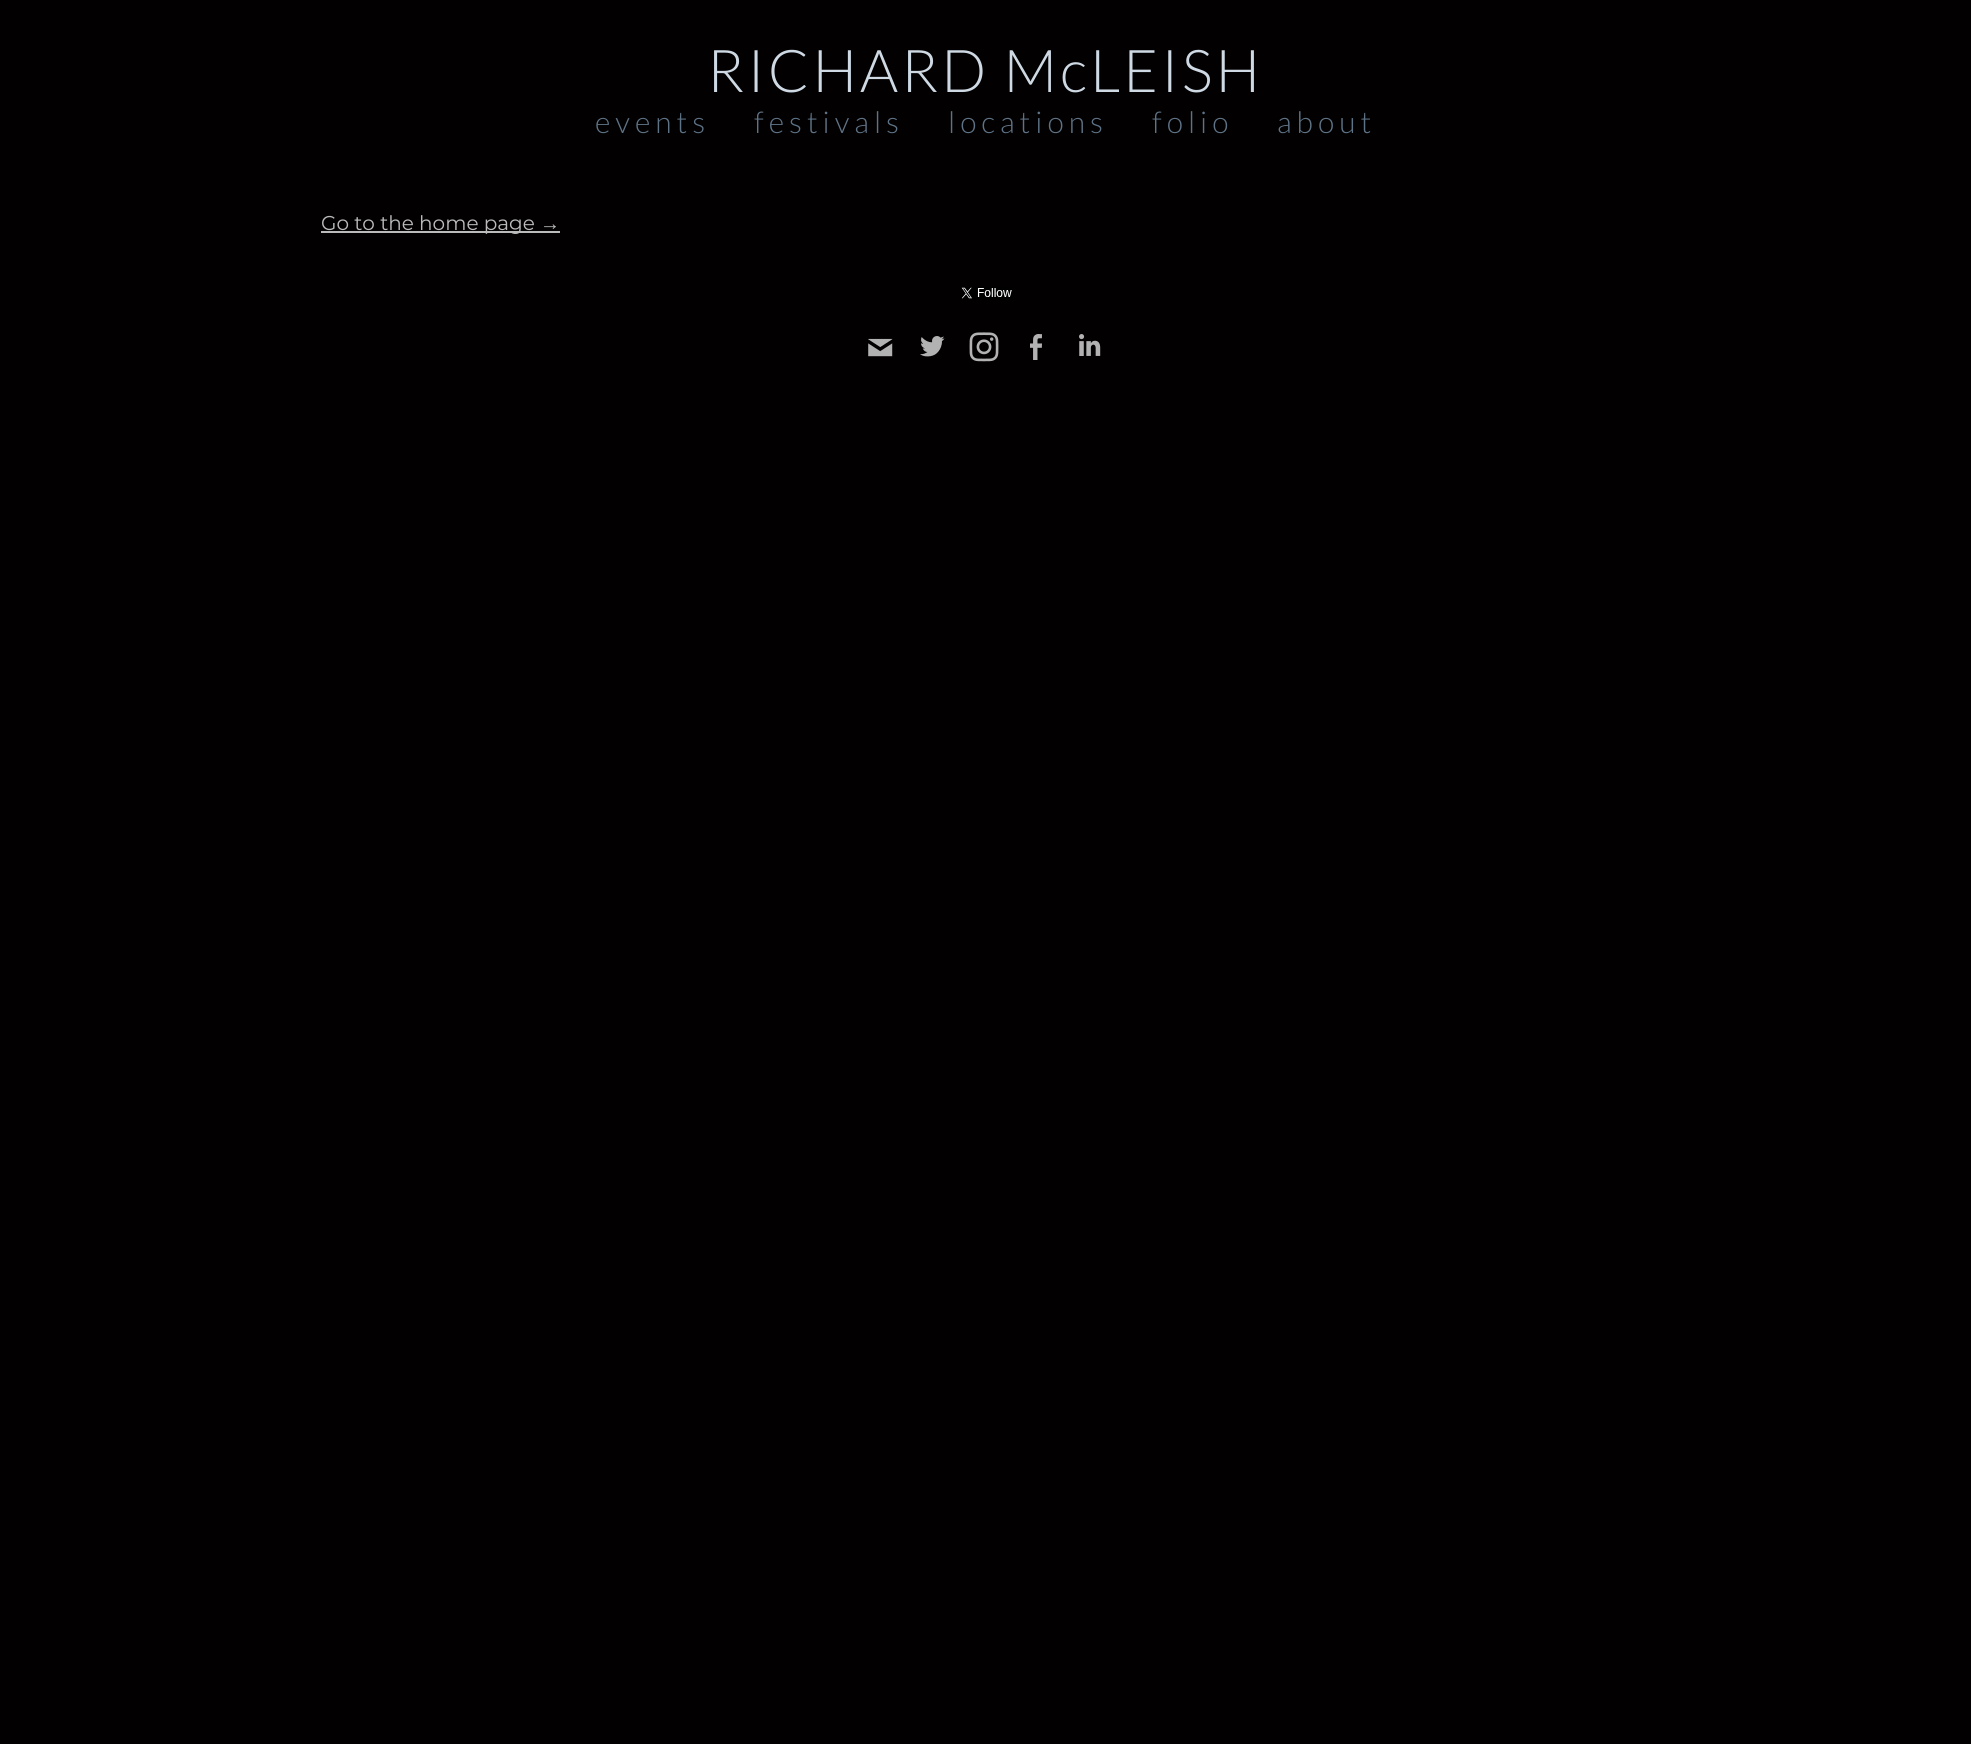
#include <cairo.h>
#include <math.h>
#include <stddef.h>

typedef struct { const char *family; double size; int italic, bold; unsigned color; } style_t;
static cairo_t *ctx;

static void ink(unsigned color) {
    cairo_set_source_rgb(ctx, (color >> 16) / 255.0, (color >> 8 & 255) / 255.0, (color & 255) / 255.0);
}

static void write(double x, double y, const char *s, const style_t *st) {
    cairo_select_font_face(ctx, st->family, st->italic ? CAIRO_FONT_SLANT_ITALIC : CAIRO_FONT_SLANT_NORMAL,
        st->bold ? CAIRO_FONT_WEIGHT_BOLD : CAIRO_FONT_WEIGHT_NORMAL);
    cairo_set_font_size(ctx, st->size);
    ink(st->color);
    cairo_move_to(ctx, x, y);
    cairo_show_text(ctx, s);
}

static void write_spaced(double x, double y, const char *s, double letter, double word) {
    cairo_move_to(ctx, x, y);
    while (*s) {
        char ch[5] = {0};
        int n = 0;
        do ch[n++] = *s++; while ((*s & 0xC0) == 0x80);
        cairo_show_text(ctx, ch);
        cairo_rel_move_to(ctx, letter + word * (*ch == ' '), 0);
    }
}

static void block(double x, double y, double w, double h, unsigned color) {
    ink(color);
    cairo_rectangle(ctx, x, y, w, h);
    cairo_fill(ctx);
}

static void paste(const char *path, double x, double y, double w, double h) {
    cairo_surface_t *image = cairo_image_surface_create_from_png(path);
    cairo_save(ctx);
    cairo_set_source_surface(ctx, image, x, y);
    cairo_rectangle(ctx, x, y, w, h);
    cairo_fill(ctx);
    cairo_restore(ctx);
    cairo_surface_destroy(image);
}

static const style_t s1 = {"Montserrat", 20, 0, 0, 0xbbbbbb};
static const style_t s2 = {"Liberation Serif", 20, 0, 0, 0xbbbbbb};

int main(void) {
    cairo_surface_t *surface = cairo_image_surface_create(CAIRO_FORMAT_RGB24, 1971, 1744);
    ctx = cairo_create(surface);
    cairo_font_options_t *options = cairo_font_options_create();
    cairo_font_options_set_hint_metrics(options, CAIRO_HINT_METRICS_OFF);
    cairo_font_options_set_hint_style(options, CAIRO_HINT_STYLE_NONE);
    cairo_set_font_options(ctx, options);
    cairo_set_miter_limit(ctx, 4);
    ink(0x020000);
    cairo_paint(ctx);
    cairo_select_font_face(ctx, "Lato Light", CAIRO_FONT_SLANT_NORMAL, CAIRO_FONT_WEIGHT_NORMAL);
    cairo_set_font_size(ctx, 59);
    ink(0xced9e4);
    write_spaced(707, 92, "RICHARD McLEISH", 3, 0);
    cairo_set_font_size(ctx, 30);
    ink(0x5f7387);
    write_spaced(595, 133, "events", 5, 0);
    write_spaced(754, 133, "festivals", 5, 0);
    write_spaced(948, 133, "locations", 5, 0);
    write_spaced(1152, 133, "folio", 5, 0);
    write_spaced(1277, 133, "about", 5, 0);
    block(321, 231, 239, 2, 0xbbbbbb);
    write(321, 230, "Go to the home page", &s1);
    write(540, 230, "→", &s2);
    paste("pic1.png", 961, 287, 51, 12);
    paste("pic2.png", 868, 338, 25, 19);
    paste("pic3.png", 920, 336, 25, 21);
    paste("pic4.png", 969, 332, 30, 30);
    paste("pic5.png", 1030, 334, 12, 26);
    paste("pic6.png", 1079, 334, 22, 22);
    cairo_surface_write_to_png(surface, "screenshot.png");
    cairo_font_options_destroy(options);
    cairo_destroy(ctx);
    cairo_surface_destroy(surface);
    return 0;
}
